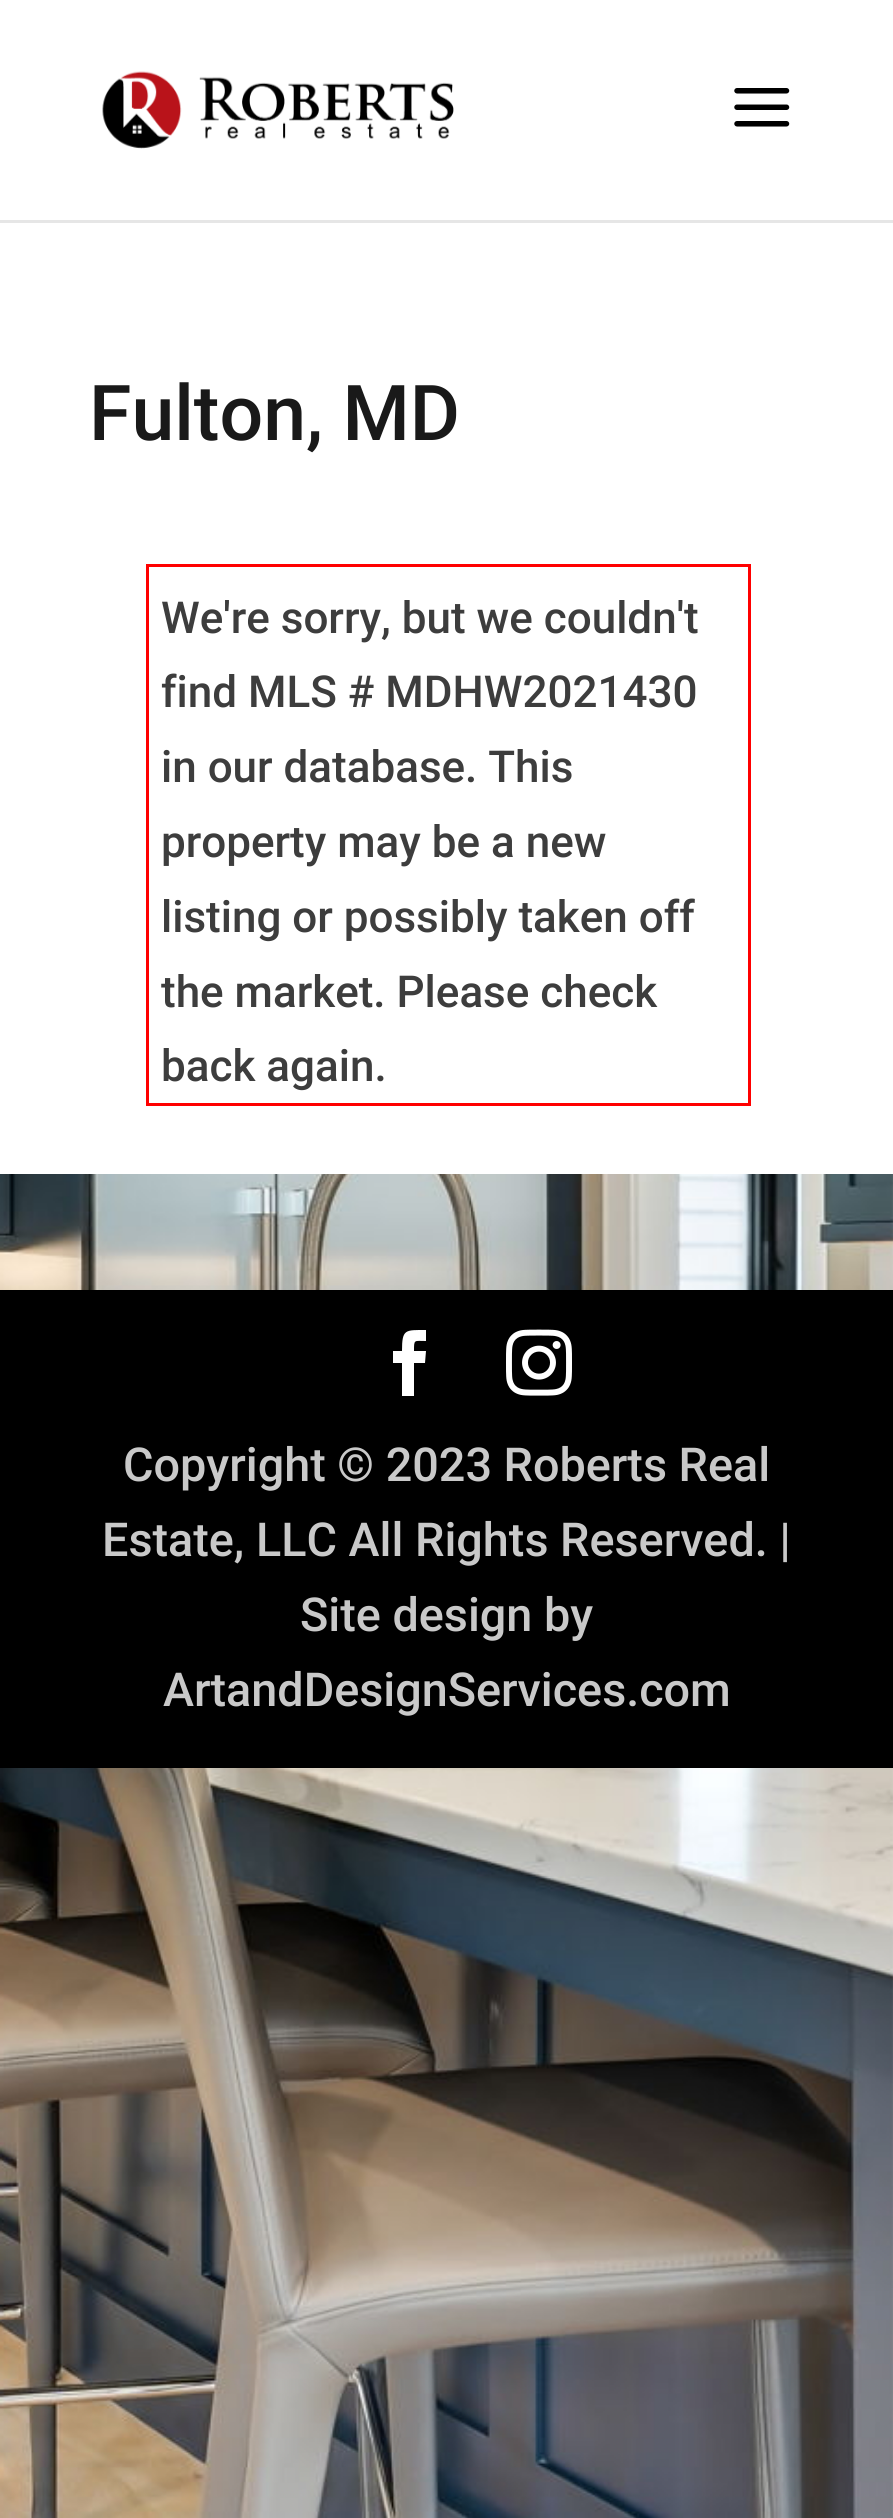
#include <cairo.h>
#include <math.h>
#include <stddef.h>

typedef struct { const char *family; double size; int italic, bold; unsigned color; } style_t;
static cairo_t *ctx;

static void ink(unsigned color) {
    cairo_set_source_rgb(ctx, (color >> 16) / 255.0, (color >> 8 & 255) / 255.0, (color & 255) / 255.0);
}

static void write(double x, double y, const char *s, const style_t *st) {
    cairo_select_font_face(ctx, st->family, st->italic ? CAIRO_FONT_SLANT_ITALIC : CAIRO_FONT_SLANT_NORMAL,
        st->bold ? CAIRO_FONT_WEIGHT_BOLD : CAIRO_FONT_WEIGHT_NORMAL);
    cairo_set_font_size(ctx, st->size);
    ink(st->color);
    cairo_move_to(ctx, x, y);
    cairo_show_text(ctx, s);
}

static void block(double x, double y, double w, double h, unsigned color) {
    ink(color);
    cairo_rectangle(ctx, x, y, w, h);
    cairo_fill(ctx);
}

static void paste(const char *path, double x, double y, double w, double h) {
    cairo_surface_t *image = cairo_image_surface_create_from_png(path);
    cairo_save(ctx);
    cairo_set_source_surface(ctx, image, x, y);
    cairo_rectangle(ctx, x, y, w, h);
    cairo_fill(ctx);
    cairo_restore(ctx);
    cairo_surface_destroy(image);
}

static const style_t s1 = {"Roboto Medium", 77, 0, 0, 0x191919};
static const style_t s2 = {"Roboto Medium", 44, 0, 0, 0x3d3d3d};
static const style_t s3 = {"Roboto Medium", 46.75, 0, 0, 0xc9c9c9};

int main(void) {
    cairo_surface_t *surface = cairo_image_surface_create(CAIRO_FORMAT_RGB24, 893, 2518);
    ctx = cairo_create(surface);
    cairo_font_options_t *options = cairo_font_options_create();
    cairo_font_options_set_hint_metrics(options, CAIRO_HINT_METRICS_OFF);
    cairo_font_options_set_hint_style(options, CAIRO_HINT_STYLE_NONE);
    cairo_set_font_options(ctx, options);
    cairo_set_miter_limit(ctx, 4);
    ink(0xffffff);
    cairo_paint(ctx);
    paste("pic1.png", 0, 1174, 893, 1344);
    ink(0xe6e6e6);
    cairo_new_path(ctx);
    cairo_move_to(ctx, 0, 220);
    cairo_line_to(ctx, 0, 223);
    cairo_line_to(ctx, 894, 223);
    cairo_line_to(ctx, 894, 3);
    cairo_line_to(ctx, 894, 220);
    cairo_close_path(ctx);
    cairo_fill(ctx);
    paste("pic2.png", 102, 71, 352, 78);
    paste("pic3.png", 734, 88, 56, 39);
    write(89, 440, "Fulton, MD", &s1);
    cairo_rectangle(ctx, 147.5, 565.5, 602, 539);
    ink(0xff0000);
    cairo_set_line_width(ctx, 3);
    cairo_stroke(ctx);
    write(161, 633, "We're sorry, but we couldn't", &s2);
    write(161, 707, "find MLS # MDHW2021430", &s2);
    write(161, 782, "in our database. This", &s2);
    write(161, 857, "property may be a new", &s2);
    write(161, 932, "listing or possibly taken off", &s2);
    write(161, 1007, "the market. Please check", &s2);
    write(161, 1081, "back again.", &s2);
    block(0, 1290, 893, 478, 0x000000);
    ink(0xffffff);
    cairo_new_path(ctx);
    cairo_move_to(ctx, 402, 1396);
    cairo_line_to(ctx, 414, 1396);
    cairo_line_to(ctx, 414, 1363);
    cairo_line_to(ctx, 425, 1363);
    cairo_line_to(ctx, 426, 1351);
    cairo_line_to(ctx, 414, 1351);
    cairo_curve_to(ctx, 414, 1339, 414, 1341, 426, 1341);
    cairo_line_to(ctx, 426, 1330);
    cairo_curve_to(ctx, 405, 1330, 402, 1329, 402, 1351);
    cairo_line_to(ctx, 393, 1351);
    cairo_line_to(ctx, 393, 1363);
    cairo_line_to(ctx, 402, 1363);
    cairo_close_path(ctx);
    cairo_fill(ctx);
    paste("pic4.png", 506, 1329, 66, 67);
    write(123, 1481, "Copyright © 2023 Roberts Real", &s3);
    write(102, 1556, "Estate, LLC All Rights Reserved. |", &s3);
    write(300, 1631, "Site design by", &s3);
    write(163, 1706, "ArtandDesignServices.com", &s3);
    cairo_surface_write_to_png(surface, "screenshot.png");
    cairo_font_options_destroy(options);
    cairo_destroy(ctx);
    cairo_surface_destroy(surface);
    return 0;
}
